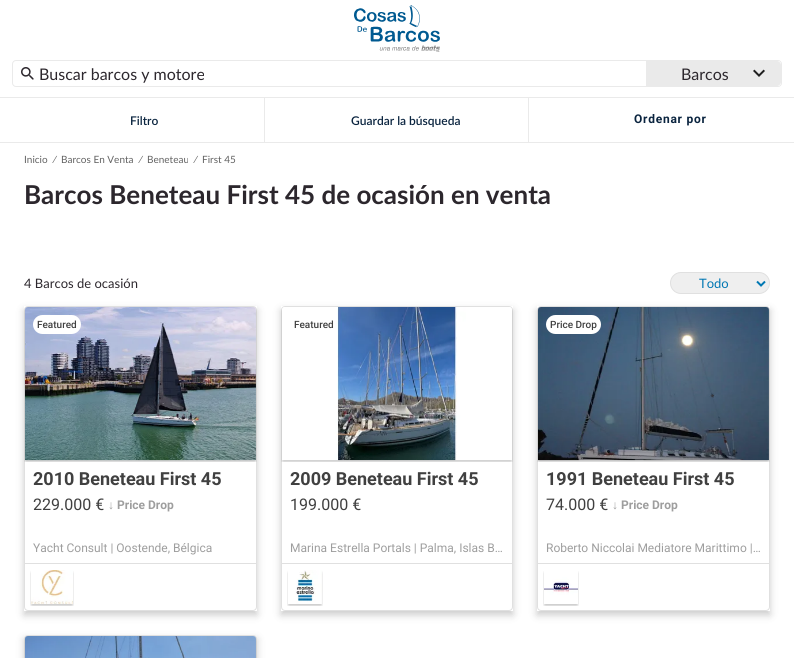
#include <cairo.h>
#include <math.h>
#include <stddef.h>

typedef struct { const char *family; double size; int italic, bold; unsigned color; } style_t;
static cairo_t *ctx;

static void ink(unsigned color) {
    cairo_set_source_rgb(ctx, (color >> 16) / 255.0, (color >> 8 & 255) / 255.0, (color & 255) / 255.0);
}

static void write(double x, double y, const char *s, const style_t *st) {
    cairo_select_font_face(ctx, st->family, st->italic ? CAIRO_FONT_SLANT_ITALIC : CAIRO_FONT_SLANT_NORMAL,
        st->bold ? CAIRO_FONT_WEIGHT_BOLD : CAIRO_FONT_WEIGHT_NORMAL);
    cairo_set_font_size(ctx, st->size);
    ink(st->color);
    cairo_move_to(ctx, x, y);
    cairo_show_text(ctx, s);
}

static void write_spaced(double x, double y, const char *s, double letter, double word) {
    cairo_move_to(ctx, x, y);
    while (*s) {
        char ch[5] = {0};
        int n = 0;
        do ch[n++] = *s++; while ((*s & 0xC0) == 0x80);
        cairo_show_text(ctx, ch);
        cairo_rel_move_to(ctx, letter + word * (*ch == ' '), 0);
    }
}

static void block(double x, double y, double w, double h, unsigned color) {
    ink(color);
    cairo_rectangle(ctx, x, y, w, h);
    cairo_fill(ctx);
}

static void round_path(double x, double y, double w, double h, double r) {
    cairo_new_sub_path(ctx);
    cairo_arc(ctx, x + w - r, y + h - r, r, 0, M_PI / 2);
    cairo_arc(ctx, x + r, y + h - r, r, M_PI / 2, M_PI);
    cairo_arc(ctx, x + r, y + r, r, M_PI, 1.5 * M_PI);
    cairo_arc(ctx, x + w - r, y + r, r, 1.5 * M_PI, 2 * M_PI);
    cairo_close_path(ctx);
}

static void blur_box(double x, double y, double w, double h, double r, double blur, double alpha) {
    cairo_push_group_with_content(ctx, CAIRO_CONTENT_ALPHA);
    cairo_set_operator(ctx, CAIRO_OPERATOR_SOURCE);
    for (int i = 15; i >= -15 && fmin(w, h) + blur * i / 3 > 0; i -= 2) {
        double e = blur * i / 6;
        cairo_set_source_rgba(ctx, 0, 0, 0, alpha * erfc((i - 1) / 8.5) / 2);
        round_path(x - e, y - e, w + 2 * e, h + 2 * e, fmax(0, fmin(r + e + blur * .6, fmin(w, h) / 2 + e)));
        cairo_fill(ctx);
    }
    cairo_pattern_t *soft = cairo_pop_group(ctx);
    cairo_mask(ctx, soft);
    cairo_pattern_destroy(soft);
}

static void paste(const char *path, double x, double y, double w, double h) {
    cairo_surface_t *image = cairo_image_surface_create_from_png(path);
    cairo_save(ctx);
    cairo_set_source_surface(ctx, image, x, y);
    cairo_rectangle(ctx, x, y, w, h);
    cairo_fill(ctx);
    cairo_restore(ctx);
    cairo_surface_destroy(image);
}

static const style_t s1 = {"Lato", 16, 0, 0, 0x2c272d};
static const style_t s2 = {"Lato SemiBold", 12, 0, 0, 0x0a243f};
static const style_t s3 = {"Lato", 10, 0, 0, 0x626262};
static const style_t s4 = {"Lato", 26, 0, 1, 0x2c272d};
static const style_t s5 = {"Lato", 13, 0, 0, 0x2c272d};
static const style_t s6 = {"Lato", 13, 0, 0, 0x0077b3};
static const style_t s7 = {"Roboto Medium", 10, 0, 0, 0x404040};
static const style_t s8 = {"Roboto", 18, 0, 1, 0x404040};
static const style_t s9 = {"Roboto", 16, 0, 0, 0x404040};
static const style_t s10 = {"Liberation Sans", 12, 0, 1, 0x9e9e9e};
static const style_t s11 = {"Roboto", 12, 0, 1, 0x9e9e9e};
static const style_t s12 = {"Roboto", 12, 0, 0, 0x9e9e9e};

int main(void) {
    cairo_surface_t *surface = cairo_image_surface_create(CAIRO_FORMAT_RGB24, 794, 658);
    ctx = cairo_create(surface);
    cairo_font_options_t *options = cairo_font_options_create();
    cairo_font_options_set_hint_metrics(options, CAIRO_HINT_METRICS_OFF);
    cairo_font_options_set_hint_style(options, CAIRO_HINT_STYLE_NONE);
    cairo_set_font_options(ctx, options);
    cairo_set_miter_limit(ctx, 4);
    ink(0xffffff);
    cairo_paint(ctx);
    paste("pic1.png", 354, 5, 86, 47);
    round_path(12.5, 60.5, 769, 26, 3.5);
    ink(0xeaeaea);
    cairo_set_line_width(ctx, 1);
    cairo_stroke(ctx);
    paste("pic2.png", 21, 67, 13, 13);
    write(39, 80, "Buscar barcos y motore", &s1);
    ink(0xeaeaea);
    cairo_new_path(ctx);
    cairo_move_to(ctx, 646, 61);
    cairo_line_to(ctx, 777, 61);
    cairo_curve_to(ctx, 779, 61, 781, 63, 781, 65);
    cairo_line_to(ctx, 781, 82);
    cairo_curve_to(ctx, 781, 84, 779, 86, 777, 86);
    cairo_line_to(ctx, 646, 86);
    cairo_close_path(ctx);
    cairo_fill(ctx);
    write(681, 80, "Barcos", &s1);
    paste("pic3.png", 753, 69, 12, 8);
    block(0, 97, 794, 1, 0xeaeaea);
    block(0, 142, 794, 1, 0xeaeaea);
    block(264, 98, 1, 44, 0xeaeaea);
    write(130, 125, "Filtro", &s2);
    block(528, 98, 1, 44, 0xeaeaea);
    write(351, 125, "Guardar la búsqueda", &s2);
    cairo_select_font_face(ctx, "Roboto", CAIRO_FONT_SLANT_NORMAL, CAIRO_FONT_WEIGHT_BOLD);
    write_spaced(634, 123, "Ordenar por", 0.75, 0);
    write(24, 163, "Inicio", &s3);
    write(54, 163, "⁄", &s3);
    write(61, 163, "Barcos En Venta", &s3);
    write(140, 163, "⁄", &s3);
    write(147, 163, "Beneteau", &s3);
    write(195, 163, "⁄", &s3);
    write(202, 163, "First 45", &s3);
    write(24, 204, "Barcos Beneteau First 45 de ocasión en venta", &s4);
    write(24, 288, "4 Barcos de ocasión", &s5);
    ink(0xefefef);
    round_path(670.5, 272.5, 99, 21, 10.5);
    cairo_fill_preserve(ctx);
    ink(0xe0e0e0);
    cairo_stroke(ctx);
    cairo_new_path(ctx);
    cairo_move_to(ctx, 757, 281.5);
    cairo_line_to(ctx, 761, 285.5);
    cairo_line_to(ctx, 765, 281.5);
    ink(0x0077b3);
    cairo_set_line_width(ctx, 2);
    cairo_stroke(ctx);
    write(699, 288, "Todo", &s6);
    cairo_save(ctx);
    cairo_set_fill_rule(ctx, CAIRO_FILL_RULE_EVEN_ODD);
    cairo_new_path(ctx);
    cairo_move_to(ctx, 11, 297);
    cairo_line_to(ctx, 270, 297);
    cairo_line_to(ctx, 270, 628);
    cairo_line_to(ctx, 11, 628);
    cairo_close_path(ctx);
    cairo_move_to(ctx, 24, 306);
    cairo_line_to(ctx, 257, 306);
    cairo_line_to(ctx, 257, 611);
    cairo_line_to(ctx, 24, 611);
    cairo_close_path(ctx);
    cairo_clip(ctx);
    ink(0x000000);
    blur_box(24, 310, 233, 305, 0, 4, 0.2);
    cairo_restore(ctx);
    round_path(24.5, 306.5, 232, 304, 3.5);
    ink(0xe0e0e0);
    cairo_set_line_width(ctx, 1);
    cairo_stroke(ctx);
    paste("pic4.png", 24, 307, 233, 155);
    ink(0xffffff);
    round_path(33, 315, 48, 19, 9.5);
    cairo_fill(ctx);
    write(37, 328, "Featured", &s7);
    write(33, 485, "2010 Beneteau First 45", &s8);
    write(33, 510, "229.000 €", &s9);
    write(108, 509, "↓", &s10);
    write(117, 509, "Price Drop", &s11);
    write(33, 552, "Yacht Consult | Oostende, Bélgica", &s12);
    block(25, 563, 231, 1, 0xe0e0e0);
    paste("pic5.png", 30, 570, 44, 36);
    cairo_save(ctx);
    cairo_set_fill_rule(ctx, CAIRO_FILL_RULE_EVEN_ODD);
    cairo_new_path(ctx);
    cairo_move_to(ctx, 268, 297);
    cairo_line_to(ctx, 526, 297);
    cairo_line_to(ctx, 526, 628);
    cairo_line_to(ctx, 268, 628);
    cairo_close_path(ctx);
    cairo_move_to(ctx, 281, 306);
    cairo_line_to(ctx, 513, 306);
    cairo_line_to(ctx, 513, 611);
    cairo_line_to(ctx, 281, 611);
    cairo_close_path(ctx);
    cairo_clip(ctx);
    ink(0x000000);
    blur_box(281, 310, 232, 305, 0, 4, 0.2);
    cairo_restore(ctx);
    round_path(281.5, 306.5, 231, 304, 3.5);
    cairo_stroke(ctx);
    paste("pic6.png", 281, 307, 232, 155);
    write(294, 328, "Featured", &s7);
    write(290, 485, "2009 Beneteau First 45", &s8);
    write(290, 510, "199.000 €", &s9);
    write(290, 552, "Marina Estrella Portals | Palma, Islas B…", &s12);
    block(282, 563, 230, 1, 0xe0e0e0);
    paste("pic7.png", 287, 570, 36, 36);
    cairo_save(ctx);
    cairo_set_fill_rule(ctx, CAIRO_FILL_RULE_EVEN_ODD);
    cairo_new_path(ctx);
    cairo_move_to(ctx, 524, 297);
    cairo_line_to(ctx, 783, 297);
    cairo_line_to(ctx, 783, 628);
    cairo_line_to(ctx, 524, 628);
    cairo_close_path(ctx);
    cairo_move_to(ctx, 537, 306);
    cairo_line_to(ctx, 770, 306);
    cairo_line_to(ctx, 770, 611);
    cairo_line_to(ctx, 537, 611);
    cairo_close_path(ctx);
    cairo_clip(ctx);
    ink(0x000000);
    blur_box(537, 310, 233, 305, 0, 4, 0.2);
    cairo_restore(ctx);
    round_path(537.5, 306.5, 232, 304, 3.5);
    cairo_stroke(ctx);
    paste("pic8.png", 537, 307, 233, 155);
    ink(0xffffff);
    round_path(546, 315, 55, 19, 9.5);
    cairo_fill(ctx);
    write(550, 328, "Price Drop", &s7);
    write(546, 485, "1991 Beneteau First 45", &s8);
    write(546, 510, "74.000 €", &s9);
    write(612, 509, "↓", &s10);
    write(621, 509, "Price Drop", &s11);
    write(546, 552, "Roberto Niccolai Mediatore Marittimo |…", &s12);
    block(538, 563, 231, 1, 0xe0e0e0);
    paste("pic9.png", 543, 571, 36, 35);
    ink(0x000000);
    blur_box(24, 639, 233, 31, 0, 4, 0.2);
    round_path(24.5, 635.5, 232, 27, 3.5);
    ink(0xe0e0e0);
    cairo_stroke(ctx);
    paste("pic10.png", 24, 636, 233, 22);
    cairo_surface_write_to_png(surface, "screenshot.png");
    cairo_font_options_destroy(options);
    cairo_destroy(ctx);
    cairo_surface_destroy(surface);
    return 0;
}
